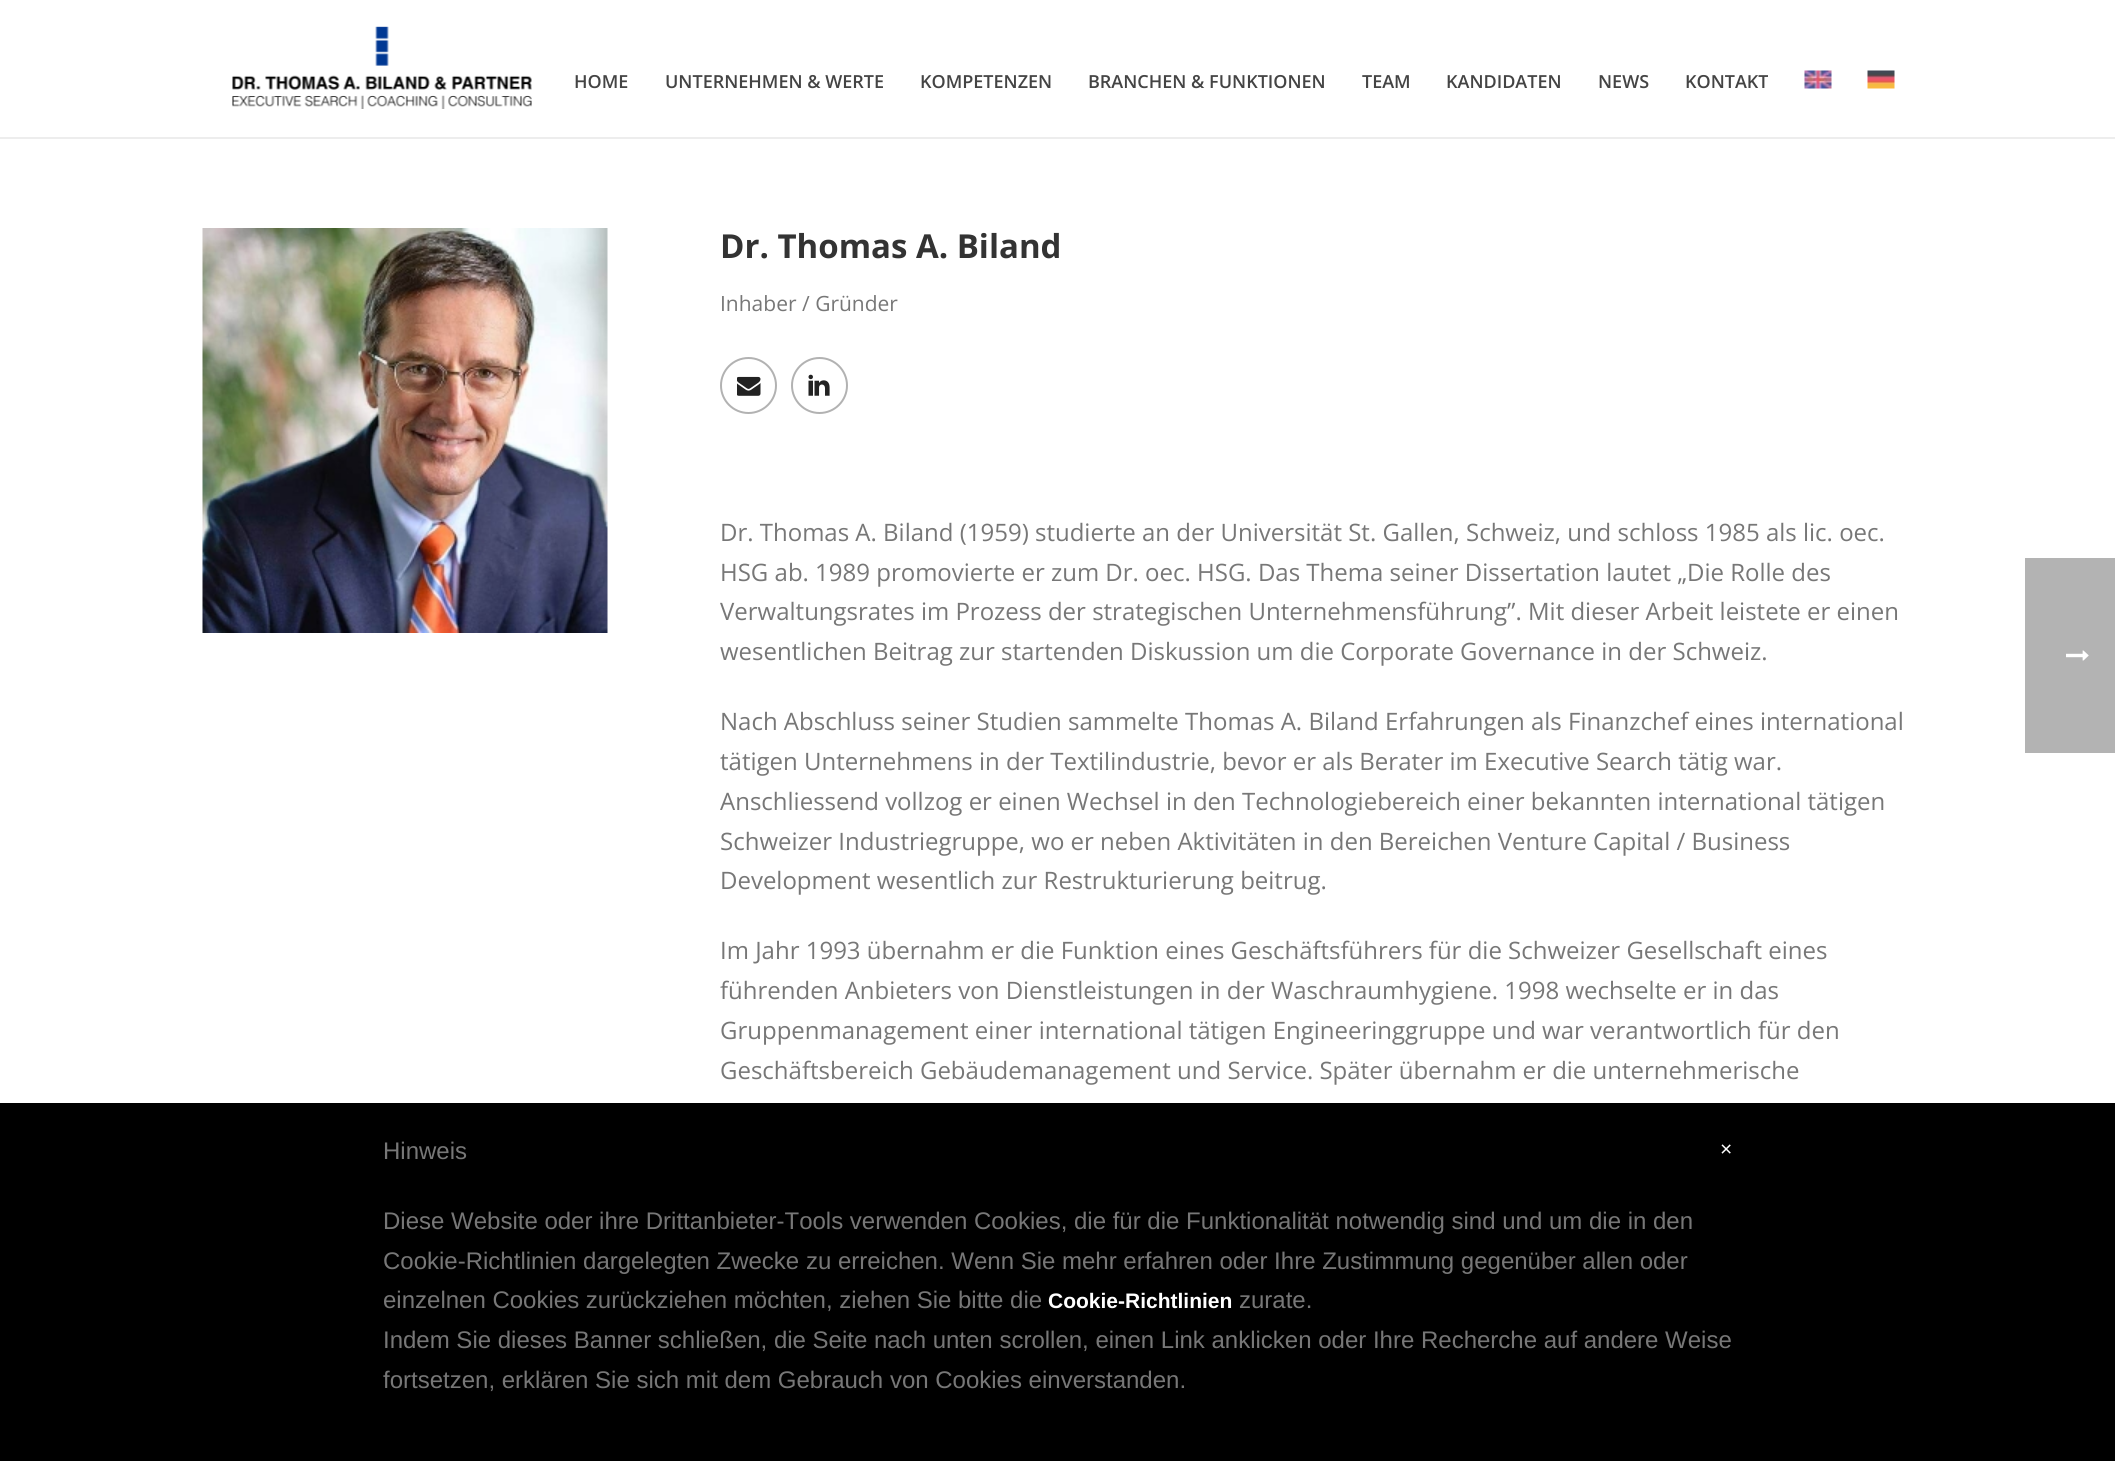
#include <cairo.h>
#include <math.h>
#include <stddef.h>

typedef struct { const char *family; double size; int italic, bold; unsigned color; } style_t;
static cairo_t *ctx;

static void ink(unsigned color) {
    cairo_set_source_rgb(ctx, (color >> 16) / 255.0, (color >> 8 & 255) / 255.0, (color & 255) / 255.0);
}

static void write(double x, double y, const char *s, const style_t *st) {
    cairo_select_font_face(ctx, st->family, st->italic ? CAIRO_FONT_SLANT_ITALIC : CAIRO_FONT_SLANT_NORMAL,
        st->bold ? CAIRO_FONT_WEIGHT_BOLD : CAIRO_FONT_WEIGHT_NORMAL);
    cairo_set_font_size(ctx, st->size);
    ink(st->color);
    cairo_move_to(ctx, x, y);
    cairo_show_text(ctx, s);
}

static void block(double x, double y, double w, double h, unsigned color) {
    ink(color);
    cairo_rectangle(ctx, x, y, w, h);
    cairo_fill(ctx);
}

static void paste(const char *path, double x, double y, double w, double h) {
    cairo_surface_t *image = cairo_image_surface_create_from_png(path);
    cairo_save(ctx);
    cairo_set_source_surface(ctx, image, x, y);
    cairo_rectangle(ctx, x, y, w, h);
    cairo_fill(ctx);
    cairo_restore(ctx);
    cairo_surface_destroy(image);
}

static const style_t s1 = {"Open Sans SemiBold", 18, 0, 0, 0x444444};
static const style_t s2 = {"Open Sans", 33, 0, 1, 0x333333};
static const style_t s3 = {"Open Sans", 21, 0, 0, 0x777777};
static const style_t s4 = {"Open Sans", 24, 0, 0, 0x777777};
static const style_t s5 = {"Liberation Sans", 24, 0, 0, 0x777777};
static const style_t s6 = {"Liberation Sans", 21, 0, 1, 0xffffff};
static const style_t s7 = {"Liberation Sans", 21, 0, 0, 0xffffff};

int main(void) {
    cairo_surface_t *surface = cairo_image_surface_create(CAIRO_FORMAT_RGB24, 2115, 1461);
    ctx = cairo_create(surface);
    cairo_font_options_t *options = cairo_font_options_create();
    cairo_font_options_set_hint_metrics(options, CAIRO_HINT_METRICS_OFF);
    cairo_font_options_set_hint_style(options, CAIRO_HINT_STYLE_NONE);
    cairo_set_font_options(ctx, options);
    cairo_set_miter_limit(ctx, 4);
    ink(0xffffff);
    cairo_paint(ctx);
    block(0, 137, 2115, 2, 0xededed);
    paste("pic1.png", 232, 26, 300, 83);
    write(574, 88, "HOME", &s1);
    write(665, 88, "UNTERNEHMEN & WERTE", &s1);
    write(920, 88, "KOMPETENZEN", &s1);
    write(1088, 88, "BRANCHEN & FUNKTIONEN", &s1);
    write(1362, 88, "TEAM", &s1);
    write(1446, 88, "KANDIDATEN", &s1);
    write(1598, 88, "NEWS", &s1);
    write(1685, 88, "KONTAKT", &s1);
    paste("pic2.png", 1804, 70, 28, 19);
    paste("pic3.png", 1867, 70, 28, 19);
    paste("pic4.png", 202, 228, 406, 405);
    write(720, 258, "Dr. Thomas A. Biland", &s2);
    write(720, 311, "Inhaber / Gründer", &s3);
    cairo_new_path(ctx);
    cairo_arc(ctx, 748.5, 385.5, 27.5, 0, 2 * M_PI);
    ink(0xb2b2b2);
    cairo_stroke(ctx);
    paste("pic5.png", 737, 376, 24, 20);
    cairo_arc(ctx, 819.5, 385.5, 27.5, 0, 2 * M_PI);
    cairo_stroke(ctx);
    paste("pic6.png", 808, 374, 22, 22);
    write(720, 541, "Dr. Thomas A. Biland (1959) studierte an der Universität St. Gallen, Schweiz, und schloss 1985 als lic. oec.", &s4);
    write(720, 581, "HSG ab. 1989 promovierte er zum Dr. oec. HSG. Das Thema seiner Dissertation lautet „Die Rolle des", &s4);
    write(720, 620, "Verwaltungsrates im Prozess der strategischen Unternehmensführung”. Mit dieser Arbeit leistete er einen", &s4);
    write(720, 660, "wesentlichen Beitrag zur startenden Diskussion um die Corporate Governance in der Schweiz.", &s4);
    write(720, 730, "Nach Abschluss seiner Studien sammelte Thomas A. Biland Erfahrungen als Finanzchef eines international", &s4);
    write(720, 770, "tätigen Unternehmens in der Textilindustrie, bevor er als Berater im Executive Search tätig war.", &s4);
    write(720, 810, "Anschliessend vollzog er einen Wechsel in den Technologiebereich einer bekannten international tätigen", &s4);
    write(720, 850, "Schweizer Industriegruppe, wo er neben Aktivitäten in den Bereichen Venture Capital / Business", &s4);
    write(720, 889, "Development wesentlich zur Restrukturierung beitrug.", &s4);
    write(720, 959, "Im Jahr 1993 übernahm er die Funktion eines Geschäftsführers für die Schweizer Gesellschaft eines", &s4);
    write(720, 999, "führenden Anbieters von Dienstleistungen in der Waschraumhygiene. 1998 wechselte er in das", &s4);
    write(720, 1039, "Gruppenmanagement einer international tätigen Engineeringgruppe und war verantwortlich für den", &s4);
    write(720, 1079, "Geschäftsbereich Gebäudemanagement und Service. Später übernahm er die unternehmerische", &s4);
    block(2025, 558, 90, 195, 0xb3b3b3);
    paste("pic7.png", 2066, 650, 23, 11);
    block(0, 1103, 2115, 358, 0x000000);
    write(383, 1159, "Hinweis", &s5);
    write(383, 1229, "Diese Website oder ihre Drittanbieter-Tools verwenden Cookies, die für die Funktionalität notwendig sind und um die in den", &s5);
    write(383, 1269, "Cookie-Richtlinien dargelegten Zwecke zu erreichen. Wenn Sie mehr erfahren oder Ihre Zustimmung gegenüber allen oder", &s5);
    write(383, 1308, "einzelnen Cookies zurückziehen möchten, ziehen Sie bitte die", &s5);
    write(1048, 1308, "Cookie-Richtlinien", &s6);
    write(1239, 1308, "zurate.", &s5);
    write(383, 1348, "Indem Sie dieses Banner schließen, die Seite nach unten scrollen, einen Link anklicken oder Ihre Recherche auf andere Weise", &s5);
    write(383, 1388, "fortsetzen, erklären Sie sich mit dem Gebrauch von Cookies einverstanden.", &s5);
    write(1720, 1156, "×", &s7);
    cairo_surface_write_to_png(surface, "screenshot.png");
    cairo_font_options_destroy(options);
    cairo_destroy(ctx);
    cairo_surface_destroy(surface);
    return 0;
}
